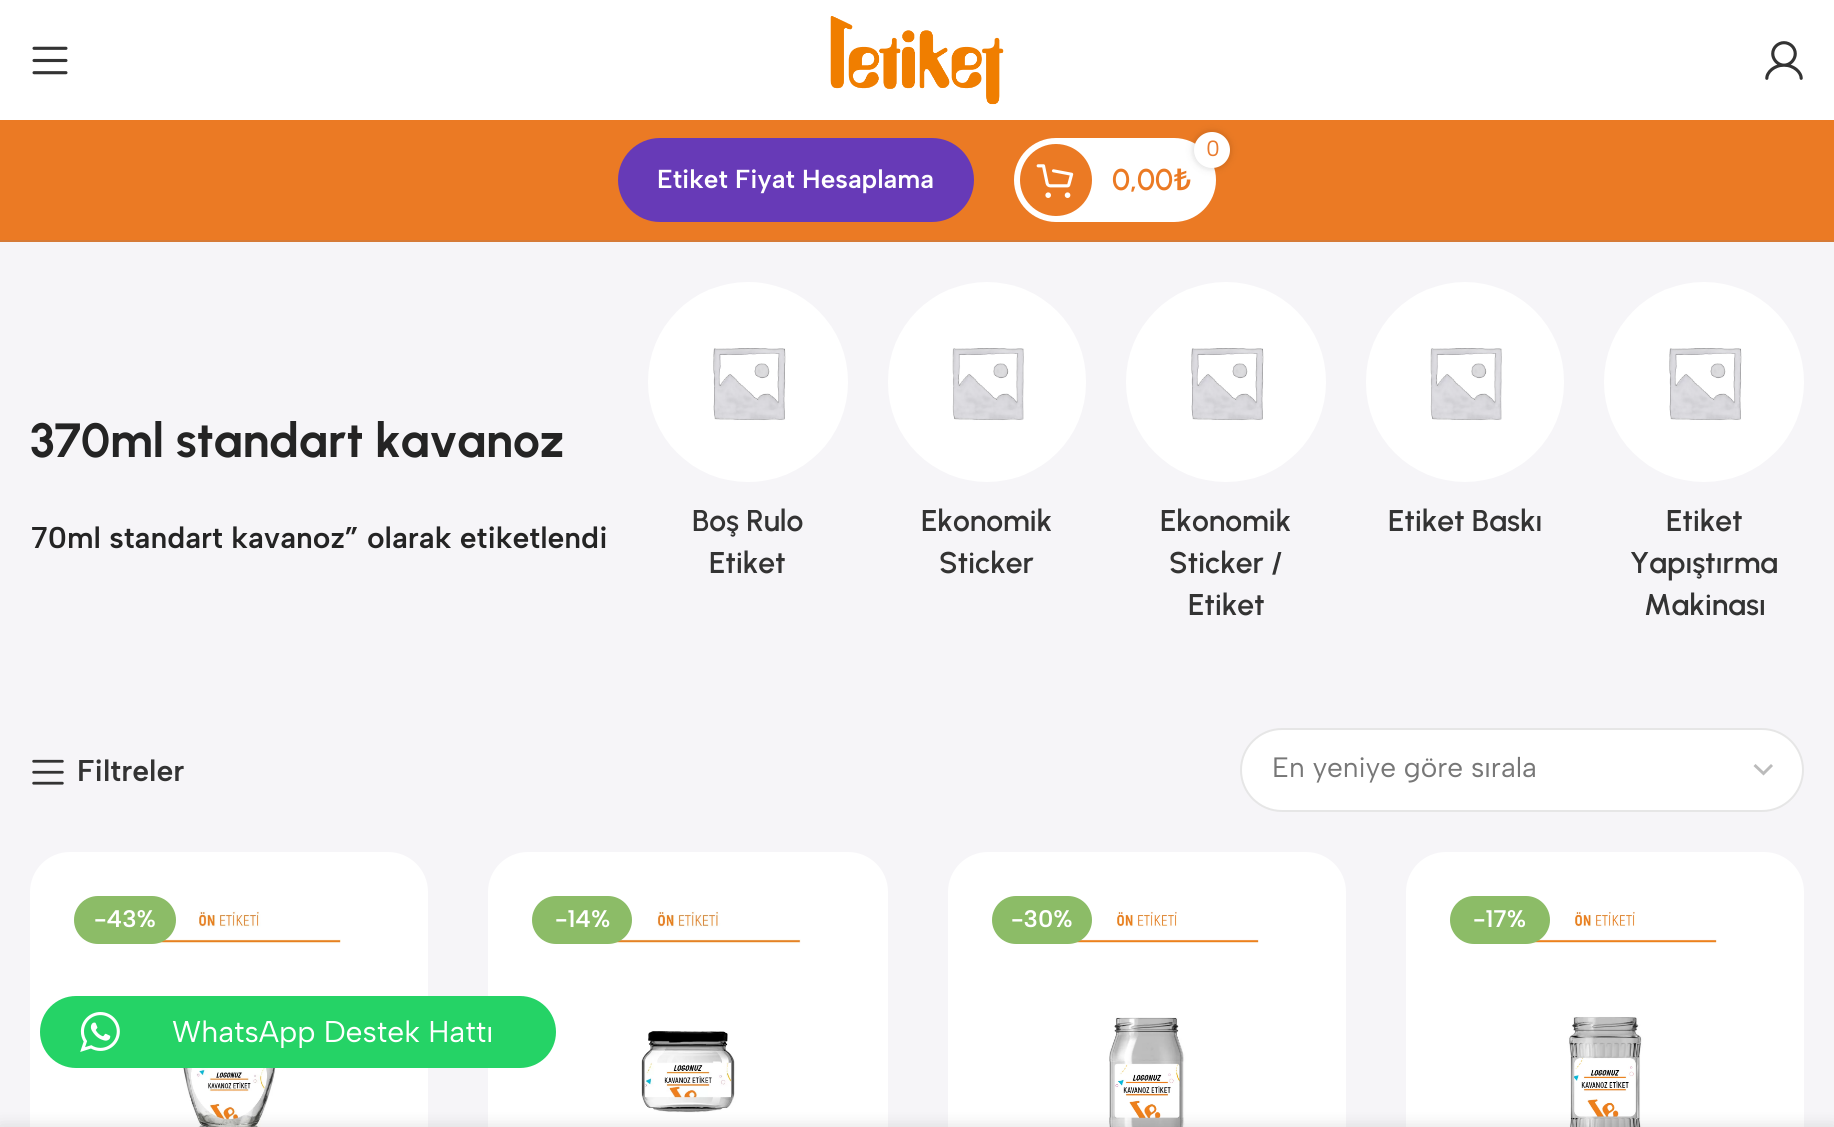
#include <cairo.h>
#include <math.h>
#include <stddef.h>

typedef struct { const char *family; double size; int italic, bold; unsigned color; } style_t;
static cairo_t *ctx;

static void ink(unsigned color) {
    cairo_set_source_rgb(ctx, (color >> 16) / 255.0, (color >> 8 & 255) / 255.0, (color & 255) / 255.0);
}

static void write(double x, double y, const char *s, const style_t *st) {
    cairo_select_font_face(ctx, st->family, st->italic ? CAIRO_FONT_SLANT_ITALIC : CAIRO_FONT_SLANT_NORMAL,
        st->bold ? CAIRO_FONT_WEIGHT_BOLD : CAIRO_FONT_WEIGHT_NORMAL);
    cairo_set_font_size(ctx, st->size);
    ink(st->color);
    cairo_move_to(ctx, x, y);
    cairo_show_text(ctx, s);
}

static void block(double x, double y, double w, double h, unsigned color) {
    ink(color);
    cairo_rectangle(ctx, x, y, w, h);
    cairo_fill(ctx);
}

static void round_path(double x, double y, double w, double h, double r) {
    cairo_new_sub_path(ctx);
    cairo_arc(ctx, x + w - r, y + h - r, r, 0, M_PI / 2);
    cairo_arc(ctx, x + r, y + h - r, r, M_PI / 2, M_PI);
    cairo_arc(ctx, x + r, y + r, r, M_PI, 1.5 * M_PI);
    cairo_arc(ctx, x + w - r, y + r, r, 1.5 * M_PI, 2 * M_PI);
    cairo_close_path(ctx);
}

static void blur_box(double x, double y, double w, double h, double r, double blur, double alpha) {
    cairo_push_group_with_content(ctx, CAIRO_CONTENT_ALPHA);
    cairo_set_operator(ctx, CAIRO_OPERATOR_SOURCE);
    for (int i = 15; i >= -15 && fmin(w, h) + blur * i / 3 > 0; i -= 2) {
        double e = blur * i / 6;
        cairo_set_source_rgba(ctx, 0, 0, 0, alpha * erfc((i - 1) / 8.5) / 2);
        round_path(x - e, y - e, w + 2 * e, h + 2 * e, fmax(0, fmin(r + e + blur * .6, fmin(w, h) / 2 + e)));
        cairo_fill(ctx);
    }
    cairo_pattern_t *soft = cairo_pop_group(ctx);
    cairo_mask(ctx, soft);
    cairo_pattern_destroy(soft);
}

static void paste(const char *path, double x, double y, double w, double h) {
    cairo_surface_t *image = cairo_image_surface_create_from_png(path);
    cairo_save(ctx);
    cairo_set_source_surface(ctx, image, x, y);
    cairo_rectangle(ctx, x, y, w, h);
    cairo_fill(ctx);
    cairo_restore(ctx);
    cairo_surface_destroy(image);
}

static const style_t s1 = {"Albert Sans SemiBold", 26, 0, 0, 0xffffff};
static const style_t s2 = {"Albert Sans", 22, 0, 0, 0xe97b2f};
static const style_t s3 = {"Urbanist SemiBold", 30, 0, 0, 0xeb7a24};
static const style_t s4 = {"Noto Sans SemiBold", 30, 0, 0, 0xeb7a24};
static const style_t s5 = {"Urbanist", 48, 0, 1, 0x242424};
static const style_t s6 = {"Albert Sans SemiBold", 30, 0, 0, 0x242424};
static const style_t s7 = {"Urbanist SemiBold", 30, 0, 0, 0x333333};
static const style_t s8 = {"Albert Sans SemiBold", 30, 0, 0, 0x333333};
static const style_t s9 = {"Albert Sans", 28, 0, 0, 0x777777};
static const style_t s10 = {"Albert Sans SemiBold", 24, 0, 0, 0xffffff};
static const style_t s11 = {"Albert Sans", 30, 0, 0, 0xffffff};

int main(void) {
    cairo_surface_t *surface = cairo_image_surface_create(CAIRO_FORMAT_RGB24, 1834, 1127);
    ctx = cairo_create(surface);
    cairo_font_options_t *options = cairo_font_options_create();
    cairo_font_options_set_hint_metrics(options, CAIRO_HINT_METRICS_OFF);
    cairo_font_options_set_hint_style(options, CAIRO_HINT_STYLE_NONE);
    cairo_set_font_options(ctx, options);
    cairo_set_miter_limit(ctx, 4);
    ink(0xffffff);
    cairo_paint(ctx);
    paste("pic1.png", 32, 46, 36, 29);
    paste("pic2.png", 830, 16, 174, 89);
    paste("pic3.png", 1765, 41, 38, 39);
    block(0, 120, 1834, 120, 0xeb7a24);
    block(0, 240, 1834, 2, 0xd67b37);
    ink(0x673ab7);
    round_path(618, 138, 356, 84, 42);
    cairo_fill(ctx);
    write(657, 188, "Etiket Fiyat Hesaplama", &s1);
    round_path(1014, 138, 202, 84, 42);
    cairo_fill(ctx);
    ink(0xeb7a24);
    cairo_arc(ctx, 1056, 180, 36, 0, 2 * M_PI);
    cairo_fill(ctx);
    ink(0x000000);
    blur_box(1194, 132, 36, 36, 18, 4, 0.17);
    ink(0xffffff);
    cairo_arc(ctx, 1212, 150, 18, 0, 2 * M_PI);
    cairo_fill(ctx);
    write(1206, 156, "0", &s2);
    paste("pic4.png", 1036, 164, 38, 34);
    write(1112, 190, "0,00", &s3);
    write(1174, 190, "₺", &s4);
    block(0, 242, 1834, 885, 0xf6f5f8);
    write(30, 457, "370ml standart kavanoz", &s5);
    write(31, 548, "70ml standart kavanoz” olarak etiketlendi", &s6);
    paste("pic5.png", 648, 282, 200, 200);
    write(692, 531, "Boş Rulo", &s7);
    write(709, 573, "Etiket", &s7);
    paste("pic6.png", 888, 282, 198, 200);
    write(921, 531, "Ekonomik", &s7);
    write(939, 573, "Sticker", &s7);
    paste("pic7.png", 1126, 282, 200, 200);
    write(1160, 531, "Ekonomik", &s7);
    write(1169, 573, "Sticker /", &s7);
    write(1188, 615, "Etiket", &s7);
    paste("pic8.png", 1366, 282, 198, 200);
    write(1388, 531, "Etiket Baskı", &s7);
    paste("pic9.png", 1604, 282, 200, 200);
    write(1666, 531, "Etiket", &s7);
    write(1630, 573, "Yapıştırma", &s7);
    write(1644, 615, "Makinası", &s7);
    paste("pic10.png", 32, 759, 32, 26);
    write(77, 781, "Filtreler", &s8);
    ink(0xffffff);
    round_path(1240, 728, 564, 84, 42);
    cairo_fill(ctx);
    cairo_new_path(ctx);
    cairo_move_to(ctx, 1754.5, 765);
    cairo_line_to(ctx, 1763.5, 773.5);
    cairo_line_to(ctx, 1772, 765);
    ink(0xbbbbbb);
    cairo_set_line_width(ctx, 2.9);
    cairo_stroke(ctx);
    round_path(1241, 729, 562, 82, 41);
    cairo_set_source_rgba(ctx, 0, 0, 0, 0.1);
    cairo_set_line_width(ctx, 2);
    cairo_stroke(ctx);
    write(1272, 777, "En yeniye göre sırala", &s9);
    ink(0xffffff);
    round_path(30, 852, 398, 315, 40);
    cairo_fill(ctx);
    paste("pic11.png", 117, 911, 224, 216);
    ink(0x8cbc67);
    round_path(74, 896, 102, 48, 24);
    cairo_fill(ctx);
    write(94, 927, "-43%", &s10);
    round_path(488, 852, 400, 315, 40);
    cairo_fill(ctx);
    paste("pic12.png", 575, 911, 226, 202);
    ink(0x8cbc67);
    round_path(532, 896, 100, 48, 24);
    cairo_fill(ctx);
    write(555, 927, "-14%", &s10);
    round_path(948, 852, 398, 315, 40);
    cairo_fill(ctx);
    paste("pic13.png", 1035, 911, 224, 216);
    ink(0x8cbc67);
    round_path(992, 896, 100, 48, 24);
    cairo_fill(ctx);
    write(1011, 927, "-30%", &s10);
    round_path(1406, 852, 398, 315, 40);
    cairo_fill(ctx);
    paste("pic14.png", 1493, 911, 224, 216);
    ink(0x8cbc67);
    round_path(1450, 896, 100, 48, 24);
    cairo_fill(ctx);
    write(1473, 927, "-17%", &s10);
    ink(0x25d366);
    round_path(40, 996, 516, 72, 36);
    cairo_fill(ctx);
    paste("pic15.png", 80, 1012, 40, 40);
    write(172, 1042, "WhatsApp Destek Hattı", &s11);
    ink(0x000000);
    blur_box(0, 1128, 1834, 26, 0, 9, 0.14);
    cairo_surface_write_to_png(surface, "screenshot.png");
    cairo_font_options_destroy(options);
    cairo_destroy(ctx);
    cairo_surface_destroy(surface);
    return 0;
}
